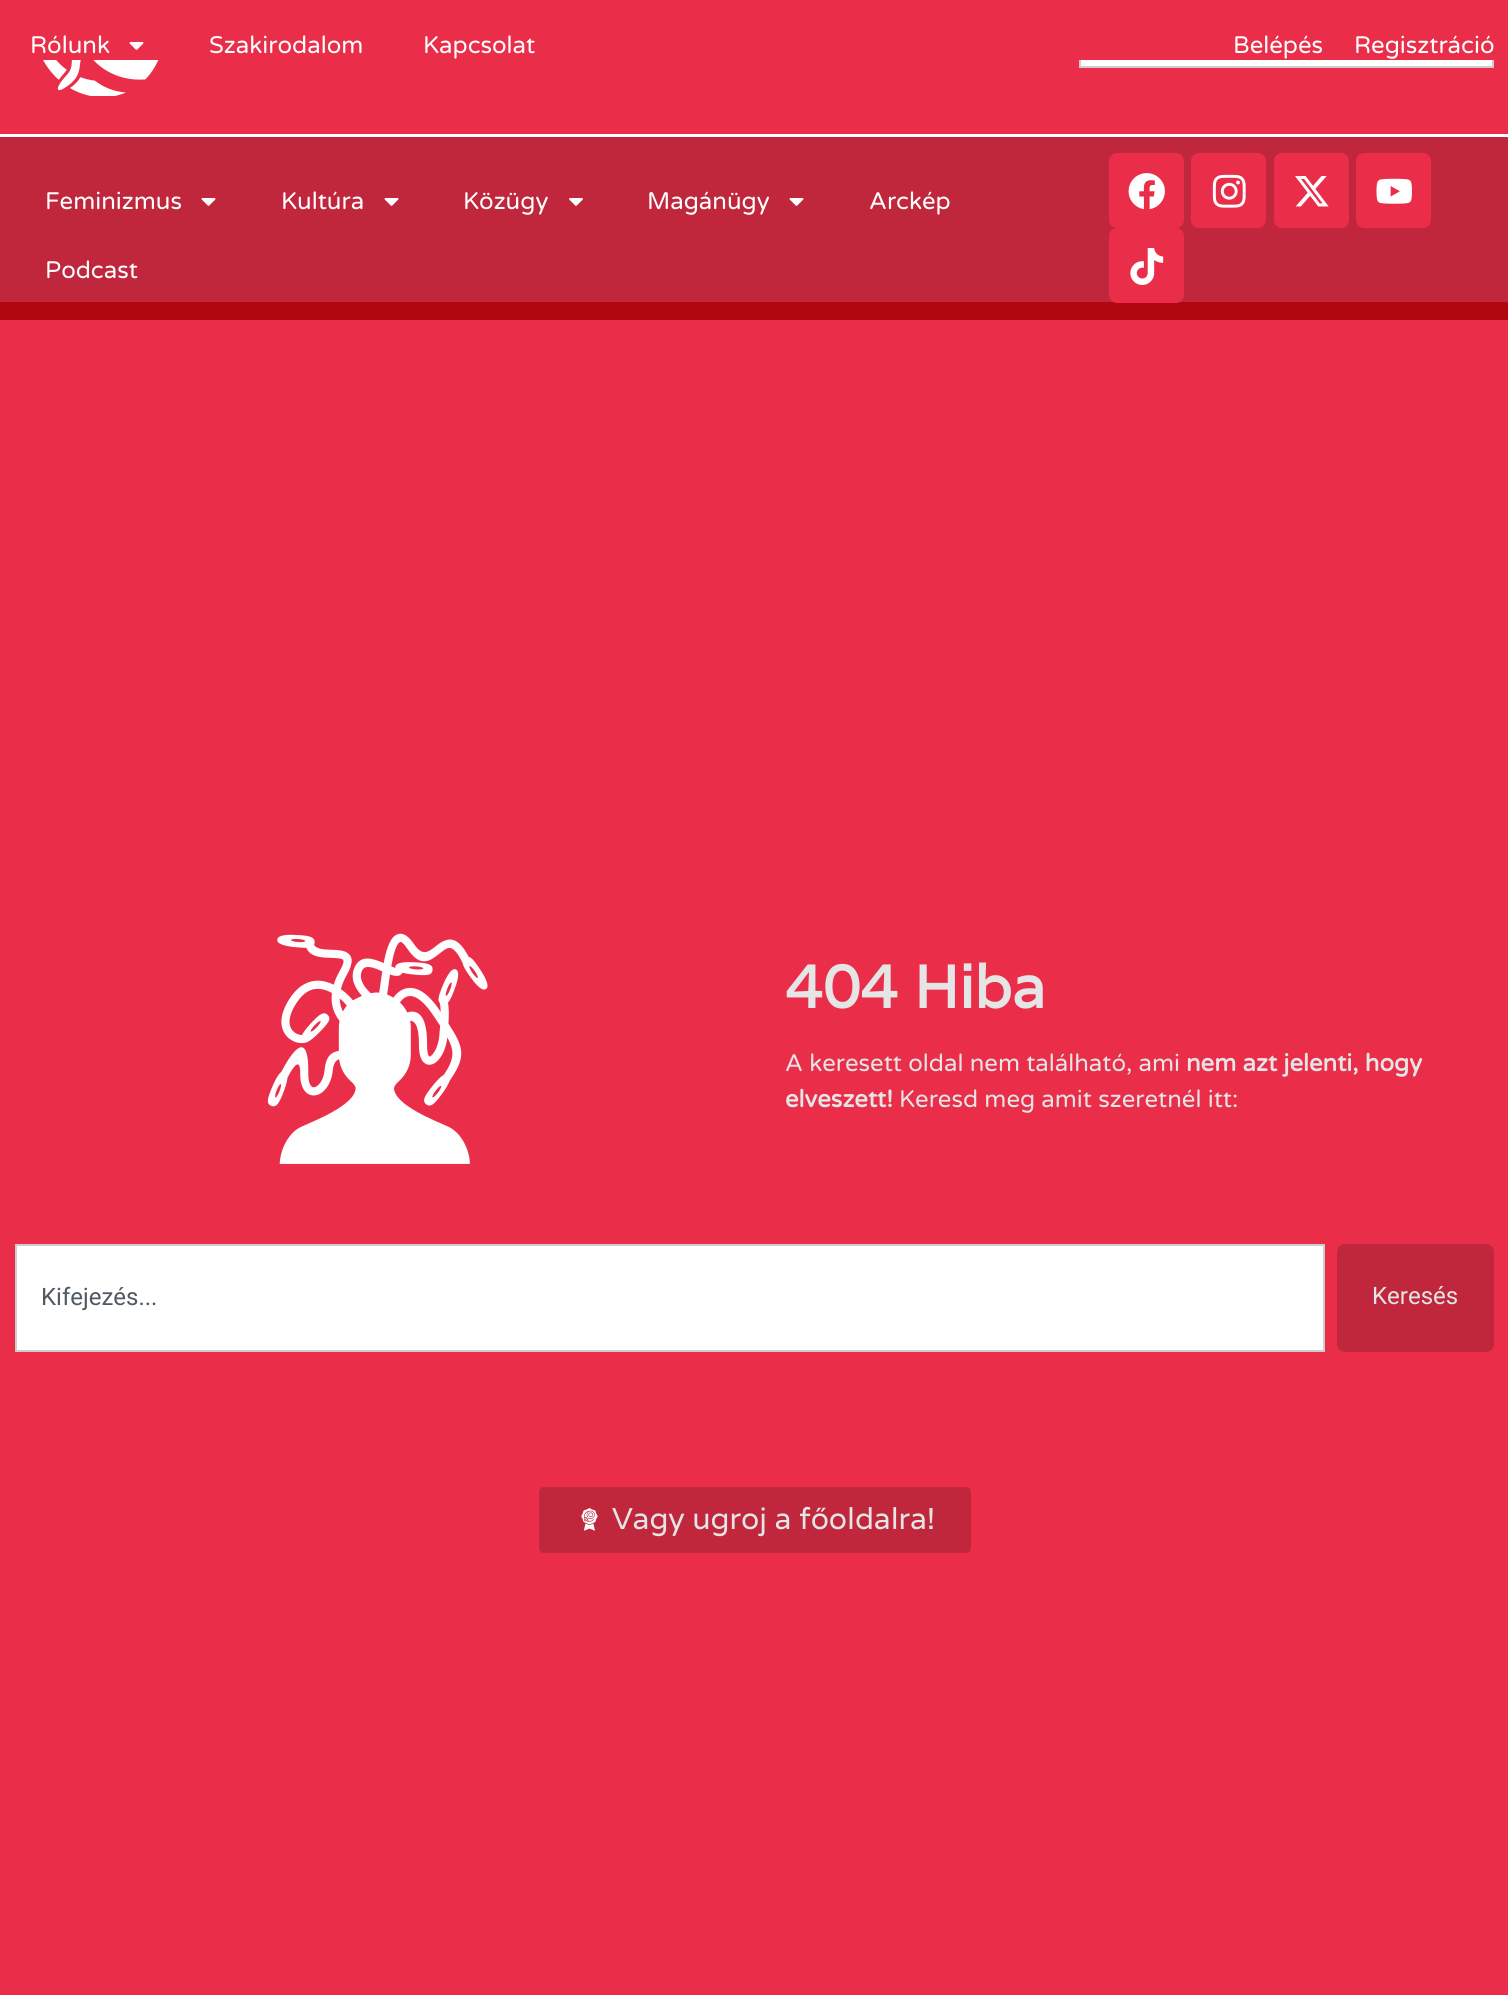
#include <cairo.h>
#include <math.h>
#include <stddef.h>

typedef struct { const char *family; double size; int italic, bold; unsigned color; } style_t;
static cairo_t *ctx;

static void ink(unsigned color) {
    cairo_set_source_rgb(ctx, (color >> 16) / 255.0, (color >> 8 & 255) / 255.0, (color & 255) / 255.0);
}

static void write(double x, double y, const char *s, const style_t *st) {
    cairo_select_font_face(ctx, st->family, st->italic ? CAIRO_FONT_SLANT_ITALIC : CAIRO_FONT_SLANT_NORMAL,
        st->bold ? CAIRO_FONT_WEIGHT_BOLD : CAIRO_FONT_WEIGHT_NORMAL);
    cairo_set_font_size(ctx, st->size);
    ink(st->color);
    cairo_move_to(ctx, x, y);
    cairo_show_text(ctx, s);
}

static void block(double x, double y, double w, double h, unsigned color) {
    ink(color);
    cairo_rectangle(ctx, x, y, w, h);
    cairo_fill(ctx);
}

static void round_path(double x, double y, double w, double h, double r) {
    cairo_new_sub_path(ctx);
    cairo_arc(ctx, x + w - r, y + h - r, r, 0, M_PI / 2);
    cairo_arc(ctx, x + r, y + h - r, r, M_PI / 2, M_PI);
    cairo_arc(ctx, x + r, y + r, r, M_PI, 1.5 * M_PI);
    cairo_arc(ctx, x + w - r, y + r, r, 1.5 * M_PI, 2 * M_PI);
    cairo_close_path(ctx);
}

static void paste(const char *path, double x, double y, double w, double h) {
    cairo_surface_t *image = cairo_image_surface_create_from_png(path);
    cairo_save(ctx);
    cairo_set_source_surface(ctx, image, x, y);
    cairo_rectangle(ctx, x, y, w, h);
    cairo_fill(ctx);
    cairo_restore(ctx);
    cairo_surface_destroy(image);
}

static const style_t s1 = {"Varela Round", 24, 0, 0, 0xffffff};
static const style_t s2 = {"Varela", 60, 0, 1, 0xe5e5e5};
static const style_t s3 = {"Varela Round", 24, 0, 0, 0xe5e5e5};
static const style_t s4 = {"Varela Round", 24, 0, 1, 0xe5e5e5};
static const style_t s5 = {"Roboto", 24, 0, 0, 0x515962};
static const style_t s6 = {"Roboto", 24, 0, 0, 0xe5e5e5};
static const style_t s7 = {"Varela", 30, 0, 0, 0xe5e5e5};

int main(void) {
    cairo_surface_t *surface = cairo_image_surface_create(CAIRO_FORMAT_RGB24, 1508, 1995);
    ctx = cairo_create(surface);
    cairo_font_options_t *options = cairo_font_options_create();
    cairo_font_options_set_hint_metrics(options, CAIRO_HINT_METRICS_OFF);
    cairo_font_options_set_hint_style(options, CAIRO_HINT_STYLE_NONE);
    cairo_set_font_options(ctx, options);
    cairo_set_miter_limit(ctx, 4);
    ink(0xffffff);
    cairo_paint(ctx);
    block(0, 60, 1508, 74, 0xea2d49);
    block(1081, 60, 411, 6, 0xffffff);
    cairo_rectangle(ctx, 1080, -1, 413, 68);
    ink(0xcdcdcd);
    cairo_stroke(ctx);
    paste("pic1.png", 43, 60, 116, 36);
    block(0, 0, 1508, 60, 0xea2d49);
    write(30, 53, "Rólunk", &s1);
    paste("pic2.png", 129, 42, 15, 8);
    write(209, 53, "Szakirodalom", &s1);
    write(423, 53, "Kapcsolat", &s1);
    write(1233, 53, "Belépés", &s1);
    write(1354, 53, "Regisztráció", &s1);
    block(0, 137, 1508, 165, 0xc0273c);
    block(0, 302, 1508, 18, 0xb00711);
    write(45, 209, "Feminizmus", &s1);
    paste("pic3.png", 201, 198, 15, 8);
    write(281, 209, "Kultúra", &s1);
    paste("pic3.png", 384, 198, 15, 8);
    write(463, 209, "Közügy", &s1);
    paste("pic4.png", 569, 198, 14, 8);
    write(647, 209, "Magánügy", &s1);
    paste("pic3.png", 789, 198, 15, 8);
    write(869, 209, "Arckép", &s1);
    write(45, 278, "Podcast", &s1);
    ink(0xea2d49);
    round_path(1109, 153, 75, 75, 8);
    cairo_fill(ctx);
    paste("pic5.png", 1128, 173, 37, 37);
    round_path(1191, 153, 75, 75, 8);
    cairo_fill(ctx);
    paste("pic6.png", 1212, 174, 34, 34);
    round_path(1274, 153, 75, 75, 8);
    cairo_fill(ctx);
    paste("pic7.png", 1295, 176, 34, 31);
    round_path(1356, 153, 75, 75, 8);
    cairo_fill(ctx);
    paste("pic8.png", 1376, 178, 36, 26);
    round_path(1109, 228, 75, 75, 8);
    cairo_fill(ctx);
    paste("pic9.png", 1130, 248, 34, 37);
    block(0, 320, 1508, 1675, 0xea2d49);
    paste("pic10.png", 267, 933, 221, 231);
    write(785, 1008, "404 Hiba", &s2);
    write(785, 1071, "A keresett oldal nem található, ami", &s3);
    write(1186, 1071, "nem azt jelenti, hogy", &s4);
    write(785, 1107, "elveszett!", &s4);
    write(899, 1107, "Keresd meg amit szeretnél itt:", &s3);
    ink(0xffffff);
    cairo_rectangle(ctx, 16, 1245, 1308, 106);
    cairo_fill_preserve(ctx);
    ink(0xcdcdcd);
    cairo_stroke(ctx);
    write(41, 1305, "Kifejezés...", &s5);
    ink(0xc0273c);
    round_path(1337, 1244, 157, 108, 8);
    cairo_fill(ctx);
    write(1372, 1304, "Keresés", &s6);
    ink(0xc0273c);
    round_path(539, 1487, 432, 66, 5);
    cairo_fill(ctx);
    paste("pic11.png", 581, 1508, 17, 23);
    write(612, 1529, "Vagy ugroj a főoldalra!", &s7);
    cairo_surface_write_to_png(surface, "screenshot.png");
    cairo_font_options_destroy(options);
    cairo_destroy(ctx);
    cairo_surface_destroy(surface);
    return 0;
}
